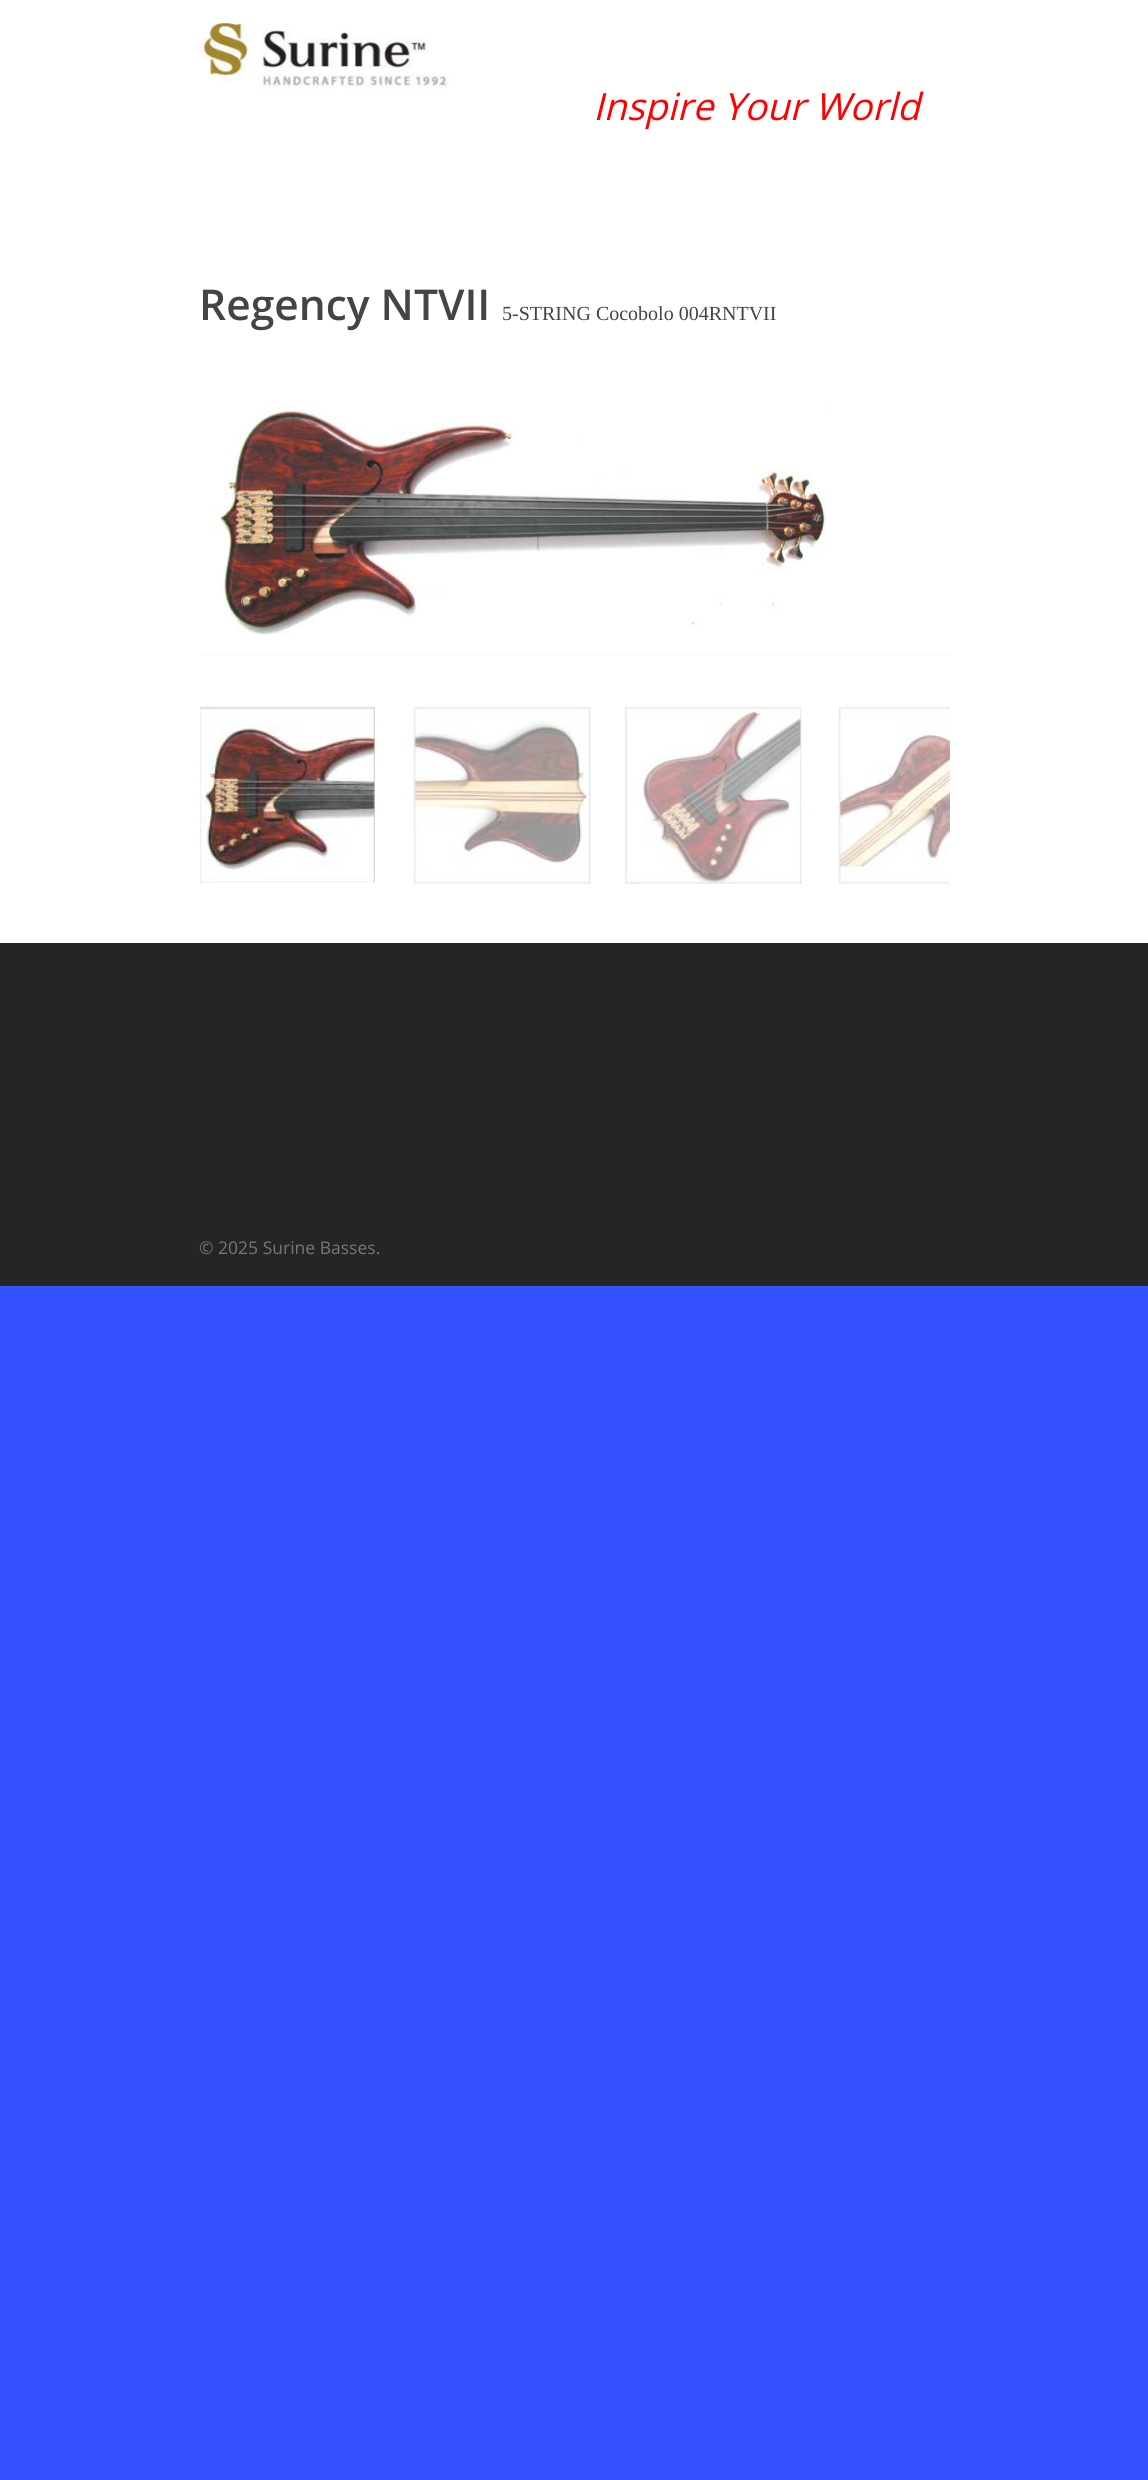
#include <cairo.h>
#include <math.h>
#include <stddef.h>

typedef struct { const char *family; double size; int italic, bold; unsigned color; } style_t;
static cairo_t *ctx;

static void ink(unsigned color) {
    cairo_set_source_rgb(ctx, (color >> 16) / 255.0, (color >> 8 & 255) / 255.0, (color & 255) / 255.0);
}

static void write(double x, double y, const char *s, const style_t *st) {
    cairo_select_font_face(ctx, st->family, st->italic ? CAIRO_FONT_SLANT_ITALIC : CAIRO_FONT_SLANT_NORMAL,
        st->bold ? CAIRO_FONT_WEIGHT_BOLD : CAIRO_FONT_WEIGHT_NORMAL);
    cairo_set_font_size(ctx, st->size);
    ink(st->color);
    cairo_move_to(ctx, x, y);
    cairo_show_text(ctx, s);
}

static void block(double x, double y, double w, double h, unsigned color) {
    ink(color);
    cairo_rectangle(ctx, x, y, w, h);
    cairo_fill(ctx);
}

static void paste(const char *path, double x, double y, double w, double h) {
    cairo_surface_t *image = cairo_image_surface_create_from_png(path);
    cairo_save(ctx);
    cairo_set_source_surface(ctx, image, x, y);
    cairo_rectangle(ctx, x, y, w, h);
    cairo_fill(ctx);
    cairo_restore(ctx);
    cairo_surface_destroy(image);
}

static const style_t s1 = {"Open Sans", 37.5, 1, 0, 0xff0000};
static const style_t s2 = {"Open Sans SemiBold", 42.5, 0, 0, 0x444444};
static const style_t s3 = {"Liberation Serif", 20, 0, 0, 0x444444};
static const style_t s4 = {"Open Sans", 17.5, 0, 0, 0x777777};

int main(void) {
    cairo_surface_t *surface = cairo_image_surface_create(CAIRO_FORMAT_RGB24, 1148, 2480);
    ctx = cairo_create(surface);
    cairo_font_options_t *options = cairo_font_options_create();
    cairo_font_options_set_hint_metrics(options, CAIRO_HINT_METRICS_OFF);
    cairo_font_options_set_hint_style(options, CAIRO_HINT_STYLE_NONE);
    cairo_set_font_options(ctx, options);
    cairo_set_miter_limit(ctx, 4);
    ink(0x3452ff);
    cairo_paint(ctx);
    block(0, 0, 1148, 943, 0xffffff);
    paste("pic1.png", 202, 23, 247, 66);
    write(593, 120, "Inspire Your World", &s1);
    write(199, 320, "Regency NTVII", &s2);
    write(502, 320, "5-STRING Cocobolo 004RNTVII", &s3);
    paste("pic2.png", 200, 405, 750, 250);
    paste("pic3.png", 200, 705, 175, 178);
    paste("pic4.png", 413, 705, 179, 179);
    paste("pic5.png", 625, 705, 177, 179);
    paste("pic6.png", 838, 705, 112, 179);
    block(0, 943, 1148, 343, 0x252525);
    write(199, 1254, "© 2025 Surine Basses.", &s4);
    cairo_surface_write_to_png(surface, "screenshot.png");
    cairo_font_options_destroy(options);
    cairo_destroy(ctx);
    cairo_surface_destroy(surface);
    return 0;
}
